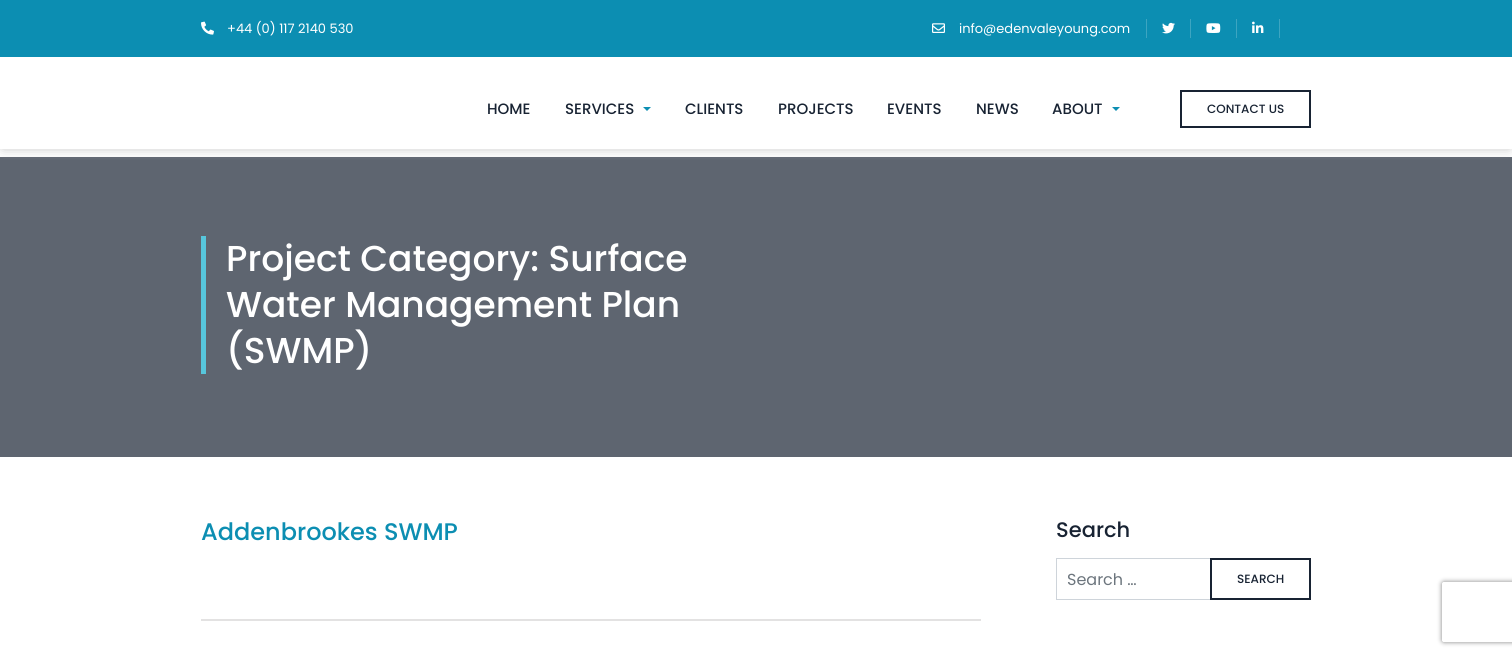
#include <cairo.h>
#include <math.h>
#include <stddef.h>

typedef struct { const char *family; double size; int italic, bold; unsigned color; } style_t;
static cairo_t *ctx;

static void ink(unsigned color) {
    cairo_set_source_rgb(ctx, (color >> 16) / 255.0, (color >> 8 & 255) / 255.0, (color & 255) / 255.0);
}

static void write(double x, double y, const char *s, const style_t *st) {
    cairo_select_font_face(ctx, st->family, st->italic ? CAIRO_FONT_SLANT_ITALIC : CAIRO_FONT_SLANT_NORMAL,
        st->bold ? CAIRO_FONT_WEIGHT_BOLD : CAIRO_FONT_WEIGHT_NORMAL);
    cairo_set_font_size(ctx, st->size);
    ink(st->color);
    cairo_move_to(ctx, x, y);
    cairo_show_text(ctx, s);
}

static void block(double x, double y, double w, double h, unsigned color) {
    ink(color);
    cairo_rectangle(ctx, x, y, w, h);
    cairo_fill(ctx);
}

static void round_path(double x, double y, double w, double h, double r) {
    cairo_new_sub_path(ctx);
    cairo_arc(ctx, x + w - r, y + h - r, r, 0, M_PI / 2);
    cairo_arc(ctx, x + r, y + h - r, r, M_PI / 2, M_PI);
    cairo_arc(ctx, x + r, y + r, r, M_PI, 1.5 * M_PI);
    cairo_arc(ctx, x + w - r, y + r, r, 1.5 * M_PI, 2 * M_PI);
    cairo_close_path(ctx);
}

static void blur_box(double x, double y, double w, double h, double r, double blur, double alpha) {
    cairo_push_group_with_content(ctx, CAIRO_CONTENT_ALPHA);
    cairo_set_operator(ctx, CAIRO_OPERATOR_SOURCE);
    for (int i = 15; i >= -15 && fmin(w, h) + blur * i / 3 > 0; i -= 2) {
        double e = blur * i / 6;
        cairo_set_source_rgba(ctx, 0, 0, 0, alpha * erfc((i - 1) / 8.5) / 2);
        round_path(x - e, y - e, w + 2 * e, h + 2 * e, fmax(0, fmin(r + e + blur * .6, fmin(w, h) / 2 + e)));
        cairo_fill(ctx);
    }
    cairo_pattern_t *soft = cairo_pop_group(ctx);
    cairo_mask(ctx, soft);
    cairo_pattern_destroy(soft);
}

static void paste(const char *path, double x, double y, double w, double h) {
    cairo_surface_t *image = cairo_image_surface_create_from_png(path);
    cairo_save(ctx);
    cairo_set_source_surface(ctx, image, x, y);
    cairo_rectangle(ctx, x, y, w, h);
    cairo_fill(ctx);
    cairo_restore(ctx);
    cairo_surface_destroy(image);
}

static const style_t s1 = {"Poppins", 13, 0, 0, 0xffffff};
static const style_t s2 = {"Poppins Medium", 15, 0, 0, 0x182333};
static const style_t s3 = {"Poppins Medium", 12, 0, 0, 0x182333};
static const style_t s4 = {"Poppins Medium", 36, 0, 0, 0xffffff};
static const style_t s5 = {"Poppins Medium", 24, 0, 0, 0x0c8eb2};
static const style_t s6 = {"Poppins Medium", 21, 0, 0, 0x182333};
static const style_t s7 = {"Poppins", 16, 0, 0, 0x6c757d};

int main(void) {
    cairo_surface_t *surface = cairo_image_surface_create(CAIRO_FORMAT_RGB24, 1512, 656);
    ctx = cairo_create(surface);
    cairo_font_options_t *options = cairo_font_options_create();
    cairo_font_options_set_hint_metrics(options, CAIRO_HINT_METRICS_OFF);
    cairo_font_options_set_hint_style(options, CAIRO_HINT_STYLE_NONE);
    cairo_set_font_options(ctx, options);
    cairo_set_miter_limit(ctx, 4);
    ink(0xffffff);
    cairo_paint(ctx);
    block(0, 157, 1512, 300, 0x5e6570);
    cairo_save(ctx);
    cairo_rectangle(ctx, 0, 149, 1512, 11);
    cairo_clip(ctx);
    ink(0xbfbfbf);
    blur_box(3, 5, 1506, 143, 0, 6, 1);
    cairo_restore(ctx);
    block(0, 0, 1512, 57, 0x0c8eb2);
    paste("pic1.png", 201, 21, 13, 14);
    write(227, 33, "+44 (0) 117 2140 530", &s1);
    paste("pic2.png", 932, 23, 13, 10);
    write(959, 33, "info@edenvaleyoung.com", &s1);
    block(1146, 19, 1, 19, 0x3da5c1);
    paste("pic3.png", 1162, 22, 13, 12);
    block(1190, 19, 1, 19, 0x3da5c1);
    paste("pic4.png", 1206, 23, 15, 10);
    block(1236, 19, 1, 19, 0x3da5c1);
    paste("pic5.png", 1252, 21, 12, 12);
    block(1279, 19, 1, 19, 0x3da5c1);
    write(487, 114, "HOME", &s2);
    write(565, 114, "SERVICES", &s2);
    ink(0x0c8eb2);
    cairo_new_path(ctx);
    cairo_move_to(ctx, 643, 107);
    cairo_line_to(ctx, 651, 107);
    cairo_line_to(ctx, 647, 111);
    cairo_close_path(ctx);
    cairo_fill(ctx);
    write(685, 114, "CLIENTS", &s2);
    write(778, 114, "PROJECTS", &s2);
    write(887, 114, "EVENTS", &s2);
    write(976, 114, "NEWS", &s2);
    write(1052, 114, "ABOUT", &s2);
    ink(0x0c8eb2);
    cairo_new_path(ctx);
    cairo_move_to(ctx, 1112, 107);
    cairo_line_to(ctx, 1120, 107);
    cairo_line_to(ctx, 1116, 111);
    cairo_close_path(ctx);
    cairo_fill(ctx);
    cairo_rectangle(ctx, 1181, 91, 129, 36);
    ink(0x182333);
    cairo_stroke(ctx);
    write(1207, 113, "CONTACT US", &s3);
    block(201, 236, 5, 138, 0x57c6dc);
    write(226, 271, "Project Category: Surface", &s4);
    write(226, 317, "Water Management Plan", &s4);
    write(226, 363, "(SWMP)", &s4);
    write(201, 540, "Addenbrookes SWMP", &s5);
    block(201, 619, 780, 2, 0xe3e2e2);
    write(1056, 537, "Search", &s6);
    cairo_rectangle(ctx, 1056.5, 558.5, 154, 41);
    ink(0xced4da);
    cairo_set_line_width(ctx, 1);
    cairo_stroke(ctx);
    write(1067, 585, "Search …", &s7);
    cairo_rectangle(ctx, 1211, 559, 99, 40);
    ink(0x182333);
    cairo_set_line_width(ctx, 2);
    cairo_stroke(ctx);
    write(1237, 583, "SEARCH", &s3);
    cairo_save(ctx);
    cairo_set_fill_rule(ctx, CAIRO_FILL_RULE_EVEN_ODD);
    cairo_new_path(ctx);
    cairo_move_to(ctx, 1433, 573);
    cairo_line_to(ctx, 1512, 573);
    cairo_line_to(ctx, 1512, 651);
    cairo_line_to(ctx, 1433, 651);
    cairo_close_path(ctx);
    cairo_move_to(ctx, 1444, 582);
    cairo_line_to(ctx, 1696, 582);
    cairo_curve_to(ctx, 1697, 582, 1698, 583, 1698, 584);
    cairo_line_to(ctx, 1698, 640);
    cairo_curve_to(ctx, 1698, 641, 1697, 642, 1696, 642);
    cairo_line_to(ctx, 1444, 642);
    cairo_curve_to(ctx, 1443, 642, 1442, 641, 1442, 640);
    cairo_line_to(ctx, 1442, 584);
    cairo_curve_to(ctx, 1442, 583, 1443, 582, 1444, 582);
    cairo_close_path(ctx);
    cairo_clip(ctx);
    ink(0x808080);
    blur_box(1442, 582, 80, 60, 2, 2.5, 1);
    cairo_restore(ctx);
    cairo_surface_write_to_png(surface, "screenshot.png");
    cairo_font_options_destroy(options);
    cairo_destroy(ctx);
    cairo_surface_destroy(surface);
    return 0;
}
